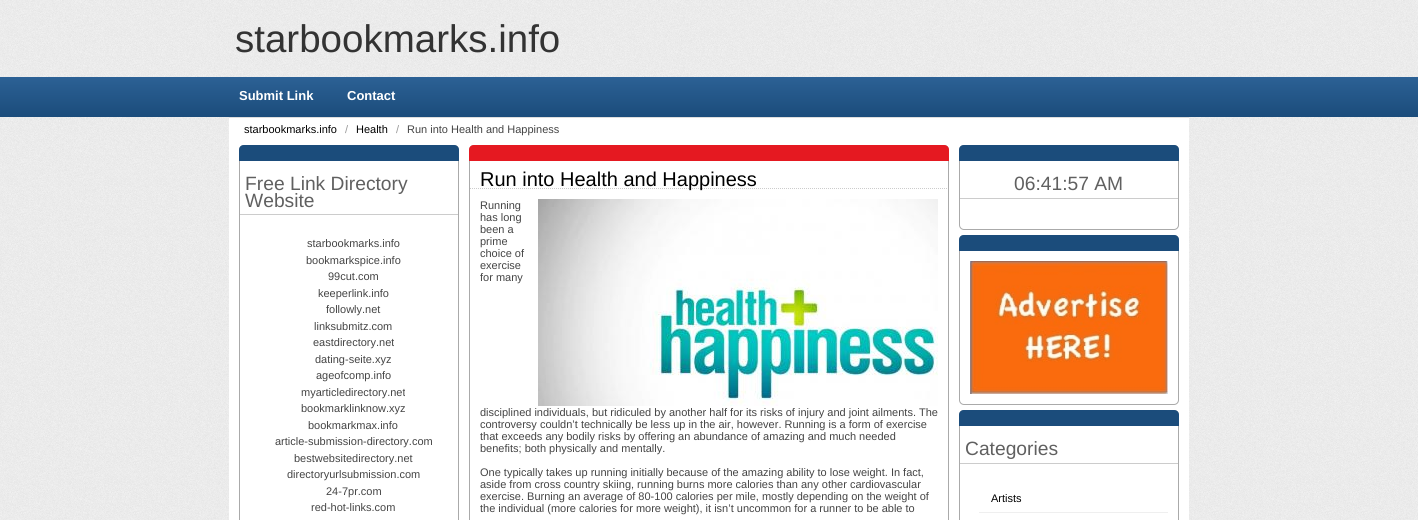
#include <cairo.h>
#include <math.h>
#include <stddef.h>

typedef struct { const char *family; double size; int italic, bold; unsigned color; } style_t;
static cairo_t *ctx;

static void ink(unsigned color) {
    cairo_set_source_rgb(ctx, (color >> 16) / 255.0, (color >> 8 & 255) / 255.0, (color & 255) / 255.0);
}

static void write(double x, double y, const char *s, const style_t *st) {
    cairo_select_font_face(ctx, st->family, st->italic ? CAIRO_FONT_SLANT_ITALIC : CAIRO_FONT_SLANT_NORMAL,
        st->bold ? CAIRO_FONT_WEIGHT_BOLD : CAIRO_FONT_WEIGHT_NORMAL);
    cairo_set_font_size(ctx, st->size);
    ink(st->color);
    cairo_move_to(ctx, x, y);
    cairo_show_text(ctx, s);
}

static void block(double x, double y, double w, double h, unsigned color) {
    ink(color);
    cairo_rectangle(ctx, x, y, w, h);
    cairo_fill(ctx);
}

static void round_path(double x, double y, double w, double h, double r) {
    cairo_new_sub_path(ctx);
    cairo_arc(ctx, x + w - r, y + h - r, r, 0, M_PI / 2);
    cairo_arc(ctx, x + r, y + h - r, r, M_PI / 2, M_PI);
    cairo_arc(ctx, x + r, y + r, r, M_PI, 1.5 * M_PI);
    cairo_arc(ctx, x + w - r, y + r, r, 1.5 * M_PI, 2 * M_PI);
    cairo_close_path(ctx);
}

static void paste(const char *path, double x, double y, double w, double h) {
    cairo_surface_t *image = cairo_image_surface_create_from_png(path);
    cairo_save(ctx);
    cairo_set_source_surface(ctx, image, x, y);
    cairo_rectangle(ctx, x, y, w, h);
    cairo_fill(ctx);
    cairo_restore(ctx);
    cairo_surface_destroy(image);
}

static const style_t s1 = {"Liberation Sans", 38.5, 0, 0, 0x333333};
static const style_t s2 = {"Liberation Sans", 13, 0, 1, 0xffffff};
static const style_t s3 = {"Liberation Sans", 11, 0, 0, 0x000000};
static const style_t s4 = {"Liberation Sans", 11, 0, 0, 0x999999};
static const style_t s5 = {"Liberation Sans", 11, 0, 0, 0x444444};
static const style_t s6 = {"Liberation Sans", 19.25, 0, 0, 0x606060};
static const style_t s7 = {"Liberation Sans", 20, 0, 0, 0x000000};

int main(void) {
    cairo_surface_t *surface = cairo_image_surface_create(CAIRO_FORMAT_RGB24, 1418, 520);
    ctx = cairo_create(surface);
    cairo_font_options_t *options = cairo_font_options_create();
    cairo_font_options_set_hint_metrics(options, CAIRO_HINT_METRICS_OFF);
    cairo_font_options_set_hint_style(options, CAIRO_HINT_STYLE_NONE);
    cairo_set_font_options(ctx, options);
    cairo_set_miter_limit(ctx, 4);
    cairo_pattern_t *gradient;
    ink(0xffffff);
    cairo_paint(ctx);
    paste("pic1.png", 0, 0, 1418, 520);
    write(235, 52, "starbookmarks.info", &s1);
    gradient = cairo_pattern_create_linear(709, 77, 709, 117);
    cairo_pattern_add_color_stop_rgba(gradient, 0, 0.173, 0.38, 0.584, 1);
    cairo_pattern_add_color_stop_rgba(gradient, 1, 0.106, 0.298, 0.482, 1);
    cairo_set_source(ctx, gradient);
    cairo_pattern_destroy(gradient);
    cairo_rectangle(ctx, 0, 77, 1418, 40);
    cairo_fill(ctx);
    write(239, 100, "Submit Link", &s2);
    write(347, 100, "Contact", &s2);
    block(229, 118, 960, 402, 0xffffff);
    block(229, 117, 960, 1, 0xdddddd);
    write(244, 133, "starbookmarks.info", &s3);
    write(345, 133, "/", &s4);
    write(356, 133, "Health", &s3);
    write(396, 133, "/", &s4);
    write(407, 133, "Run into Health and Happiness", &s5);
    round_path(239.5, 145.5, 219, 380, 4.5);
    ink(0xaaaaaa);
    cairo_set_line_width(ctx, 1);
    cairo_stroke(ctx);
    ink(0x1b4c7b);
    cairo_new_path(ctx);
    cairo_move_to(ctx, 244, 145);
    cairo_line_to(ctx, 454, 145);
    cairo_curve_to(ctx, 457, 145, 459, 147, 459, 150);
    cairo_line_to(ctx, 459, 161);
    cairo_line_to(ctx, 239, 161);
    cairo_line_to(ctx, 239, 150);
    cairo_curve_to(ctx, 239, 147, 241, 145, 244, 145);
    cairo_close_path(ctx);
    cairo_fill(ctx);
    block(240, 214, 218, 1, 0xcccccc);
    write(245, 190, "Free Link Directory", &s6);
    write(245, 207, "Website", &s6);
    write(307, 247, "starbookmarks.info", &s5);
    write(306, 264, "bookmarkspice.info", &s5);
    write(328, 280, "99cut.com", &s5);
    write(318, 297, "keeperlink.info", &s5);
    write(326, 313, "followly.net", &s5);
    write(314, 330, "linksubmitz.com", &s5);
    write(313, 346, "eastdirectory.net", &s5);
    write(315, 363, "dating-seite.xyz", &s5);
    write(316, 379, "ageofcomp.info", &s5);
    write(301, 396, "myarticledirectory.net", &s5);
    write(301, 412, "bookmarklinknow.xyz", &s5);
    write(308, 429, "bookmarkmax.info", &s5);
    write(275, 445, "article-submission-directory.com", &s5);
    write(294, 462, "bestwebsitedirectory.net", &s5);
    write(287, 478, "directoryurlsubmission.com", &s5);
    write(326, 495, "24-7pr.com", &s5);
    write(311, 511, "red-hot-links.com", &s5);
    round_path(469.5, 145.5, 479, 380, 4.5);
    ink(0xaaaaaa);
    cairo_stroke(ctx);
    ink(0xe51921);
    cairo_new_path(ctx);
    cairo_move_to(ctx, 474, 145);
    cairo_line_to(ctx, 944, 145);
    cairo_curve_to(ctx, 947, 145, 949, 147, 949, 150);
    cairo_line_to(ctx, 949, 161);
    cairo_line_to(ctx, 469, 161);
    cairo_line_to(ctx, 469, 150);
    cairo_curve_to(ctx, 469, 147, 471, 145, 474, 145);
    cairo_close_path(ctx);
    cairo_fill(ctx);
    cairo_new_path(ctx);
    cairo_move_to(ctx, 470, 188.5);
    cairo_line_to(ctx, 948, 188.5);
    ink(0xcccccc);
    cairo_set_dash(ctx, (double[]){1, 1}, 2, 0);
    cairo_stroke(ctx);
    write(480, 186, "Run into Health and Happiness", &s7);
    paste("pic2.png", 538, 199, 400, 207);
    write(480, 209, "Running", &s5);
    write(480, 221, "has long", &s5);
    write(480, 233, "been a", &s5);
    write(480, 245, "prime", &s5);
    write(480, 257, "choice of", &s5);
    write(480, 269, "exercise", &s5);
    write(480, 281, "for many", &s5);
    write(480, 416, "disciplined individuals, but ridiculed by another half for its risks of injury and joint ailments. The", &s5);
    write(480, 428, "controversy couldn’t technically be less up in the air, however. Running is a form of exercise", &s5);
    write(480, 440, "that exceeds any bodily risks by offering an abundance of amazing and much needed", &s5);
    write(480, 452, "benefits; both physically and mentally.", &s5);
    write(480, 476, "One typically takes up running initially because of the amazing ability to lose weight. In fact,", &s5);
    write(480, 488, "aside from cross country skiing, running burns more calories than any other cardiovascular", &s5);
    write(480, 500, "exercise. Burning an average of 80-100 calories per mile, mostly depending on the weight of", &s5);
    write(480, 512, "the individual (more calories for more weight), it isn’t uncommon for a runner to be able to", &s5);
    round_path(959.5, 145.5, 219, 84, 4.5);
    ink(0xaaaaaa);
    cairo_set_dash(ctx, NULL, 0, 0);
    cairo_stroke(ctx);
    ink(0x1b4c7b);
    cairo_new_path(ctx);
    cairo_move_to(ctx, 964, 145);
    cairo_line_to(ctx, 1174, 145);
    cairo_curve_to(ctx, 1177, 145, 1179, 147, 1179, 150);
    cairo_line_to(ctx, 1179, 161);
    cairo_line_to(ctx, 959, 161);
    cairo_line_to(ctx, 959, 150);
    cairo_curve_to(ctx, 959, 147, 961, 145, 964, 145);
    cairo_close_path(ctx);
    cairo_fill(ctx);
    block(960, 198, 218, 1, 0xcccccc);
    write(1014, 190, "06:41:57 AM", &s6);
    round_path(959.5, 235.5, 219, 169, 4.5);
    ink(0xaaaaaa);
    cairo_stroke(ctx);
    ink(0x1b4c7b);
    cairo_new_path(ctx);
    cairo_move_to(ctx, 964, 235);
    cairo_line_to(ctx, 1174, 235);
    cairo_curve_to(ctx, 1177, 235, 1179, 237, 1179, 240);
    cairo_line_to(ctx, 1179, 251);
    cairo_line_to(ctx, 959, 251);
    cairo_line_to(ctx, 959, 240);
    cairo_curve_to(ctx, 959, 237, 961, 235, 964, 235);
    cairo_close_path(ctx);
    cairo_fill(ctx);
    paste("pic3.png", 970, 261, 198, 133);
    round_path(959.5, 410.5, 219, 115, 4.5);
    ink(0xaaaaaa);
    cairo_stroke(ctx);
    ink(0x1b4c7b);
    cairo_new_path(ctx);
    cairo_move_to(ctx, 964, 410);
    cairo_line_to(ctx, 1174, 410);
    cairo_curve_to(ctx, 1177, 410, 1179, 412, 1179, 415);
    cairo_line_to(ctx, 1179, 426);
    cairo_line_to(ctx, 959, 426);
    cairo_line_to(ctx, 959, 415);
    cairo_curve_to(ctx, 959, 412, 961, 410, 964, 410);
    cairo_close_path(ctx);
    cairo_fill(ctx);
    block(960, 463, 218, 1, 0xcccccc);
    write(965, 455, "Categories", &s6);
    block(979, 512, 189, 1, 0xefefef);
    write(991, 502, "Artists", &s3);
    cairo_surface_write_to_png(surface, "screenshot.png");
    cairo_font_options_destroy(options);
    cairo_destroy(ctx);
    cairo_surface_destroy(surface);
    return 0;
}
